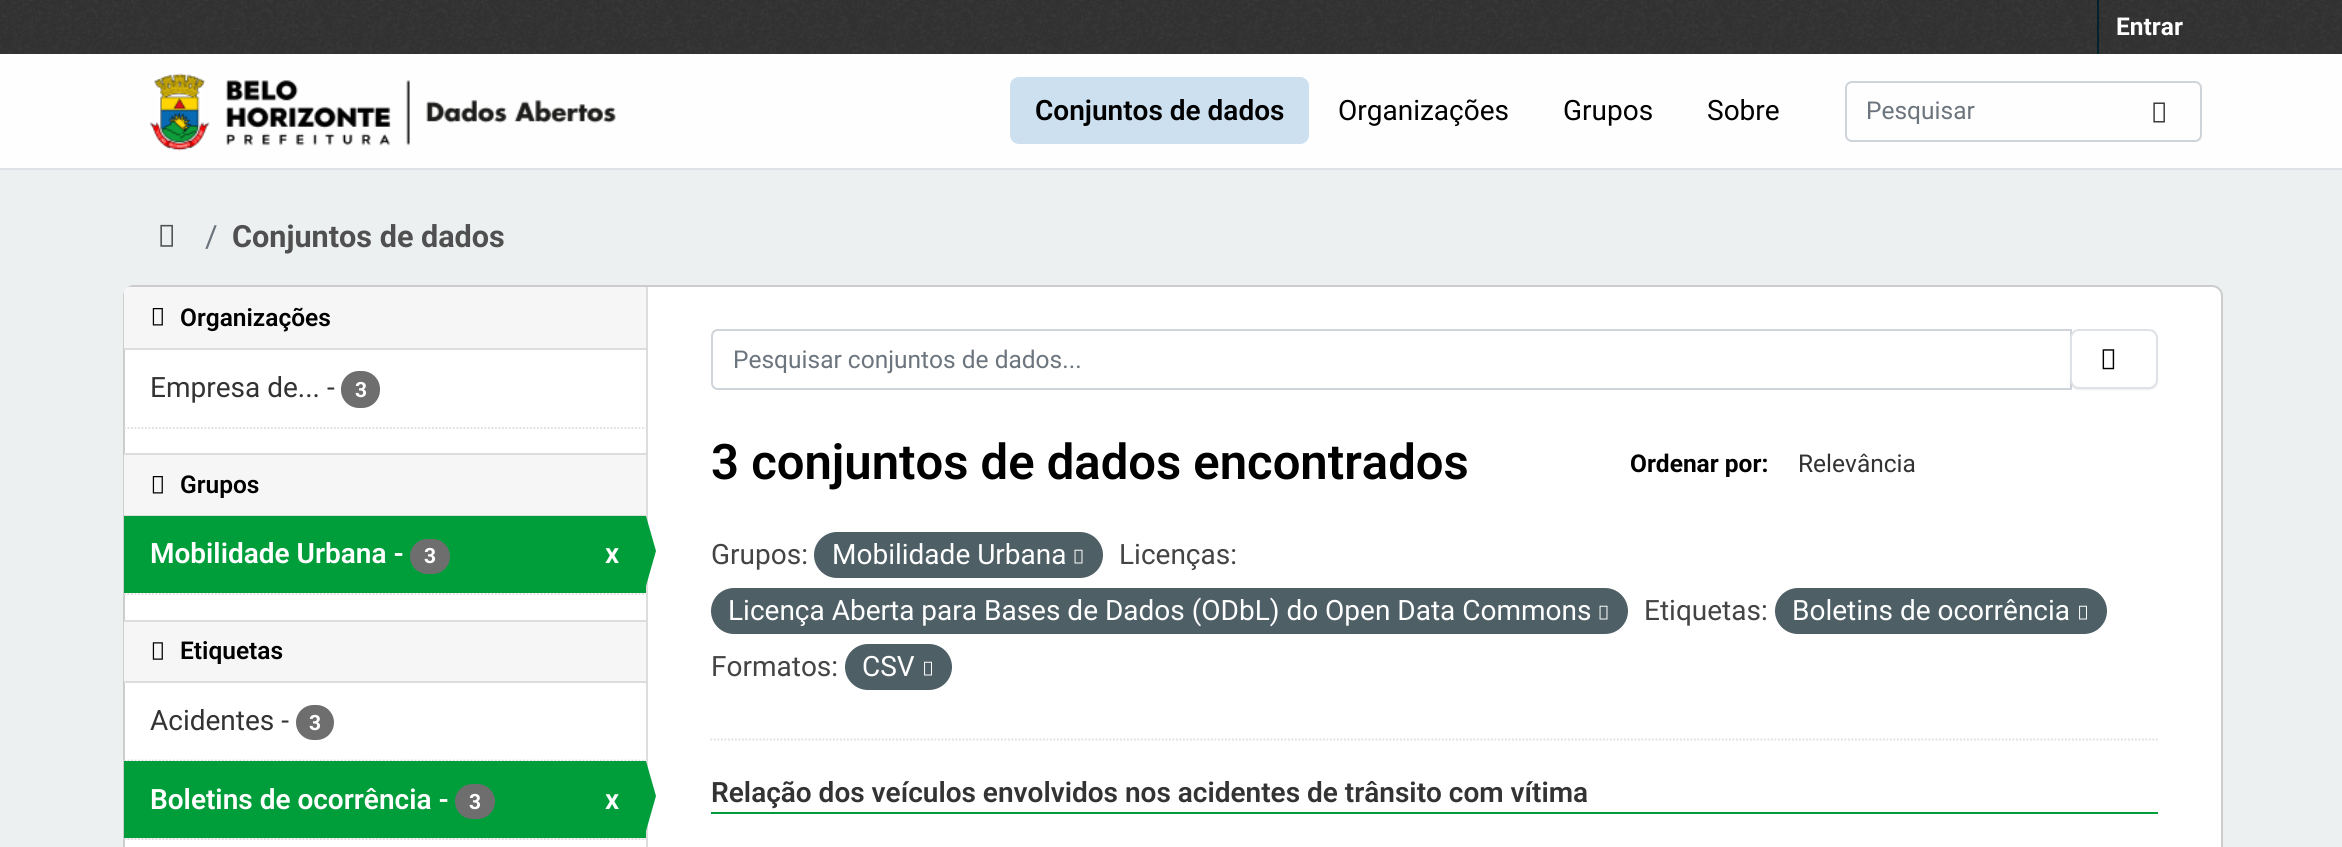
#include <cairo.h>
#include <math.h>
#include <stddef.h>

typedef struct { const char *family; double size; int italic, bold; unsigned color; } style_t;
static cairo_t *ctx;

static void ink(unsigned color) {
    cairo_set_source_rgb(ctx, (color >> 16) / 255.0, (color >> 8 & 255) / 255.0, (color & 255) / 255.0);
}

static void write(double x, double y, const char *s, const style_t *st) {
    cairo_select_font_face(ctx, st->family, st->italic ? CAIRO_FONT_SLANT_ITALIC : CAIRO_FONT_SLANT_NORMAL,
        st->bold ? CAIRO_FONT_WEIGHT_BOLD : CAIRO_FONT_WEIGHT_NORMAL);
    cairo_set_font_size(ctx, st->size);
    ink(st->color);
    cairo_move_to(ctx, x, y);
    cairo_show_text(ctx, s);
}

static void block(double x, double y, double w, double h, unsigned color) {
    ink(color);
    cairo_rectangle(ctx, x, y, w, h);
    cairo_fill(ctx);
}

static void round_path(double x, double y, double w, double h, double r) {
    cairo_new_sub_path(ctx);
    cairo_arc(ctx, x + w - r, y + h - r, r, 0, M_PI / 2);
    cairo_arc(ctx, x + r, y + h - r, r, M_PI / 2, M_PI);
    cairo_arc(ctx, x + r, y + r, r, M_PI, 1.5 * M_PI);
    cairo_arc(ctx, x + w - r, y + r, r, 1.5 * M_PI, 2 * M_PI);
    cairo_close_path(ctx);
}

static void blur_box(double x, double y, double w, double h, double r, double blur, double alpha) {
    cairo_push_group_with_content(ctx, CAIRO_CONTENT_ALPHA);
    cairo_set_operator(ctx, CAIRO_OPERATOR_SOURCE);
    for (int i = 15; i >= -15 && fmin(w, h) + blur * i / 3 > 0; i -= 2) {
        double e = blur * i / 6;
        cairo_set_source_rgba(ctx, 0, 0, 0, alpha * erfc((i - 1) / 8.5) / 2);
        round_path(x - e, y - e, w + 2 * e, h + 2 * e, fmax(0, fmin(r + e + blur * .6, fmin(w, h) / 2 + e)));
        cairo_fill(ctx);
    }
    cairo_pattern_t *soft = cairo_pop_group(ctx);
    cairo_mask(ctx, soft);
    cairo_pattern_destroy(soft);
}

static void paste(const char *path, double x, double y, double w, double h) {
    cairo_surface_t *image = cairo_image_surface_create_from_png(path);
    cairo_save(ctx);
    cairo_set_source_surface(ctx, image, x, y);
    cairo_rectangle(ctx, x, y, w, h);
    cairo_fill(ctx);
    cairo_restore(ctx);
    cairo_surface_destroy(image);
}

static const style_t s1 = {"Roboto", 24.5, 0, 1, 0xffffff};
static const style_t s2 = {"Roboto SemiBold", 28, 0, 0, 0x000000};
static const style_t s3 = {"Roboto", 28, 0, 0, 0x000000};
static const style_t s4 = {"Roboto", 24.5, 0, 0, 0x6c757d};
static const style_t s5 = {"Roboto", 30.6, 0, 0, 0x6c757d};
static const style_t s6 = {"Roboto", 30.6, 0, 1, 0x505050};
static const style_t s7 = {"Roboto SemiBold", 24.5, 0, 0, 0x000000};
static const style_t s8 = {"Roboto", 28, 0, 0, 0x333333};
static const style_t s9 = {"Roboto", 21, 0, 1, 0xffffff};
static const style_t s10 = {"Roboto SemiBold", 28, 0, 0, 0xffffff};
static const style_t s11 = {"Roboto SemiBold", 49, 0, 0, 0x000000};
static const style_t s12 = {"Roboto", 24.5, 0, 1, 0x000000};
static const style_t s13 = {"Roboto", 24.5, 0, 0, 0x333333};
static const style_t s14 = {"Roboto", 28, 0, 0, 0x444444};
static const style_t s15 = {"Roboto", 28, 0, 0, 0xffffff};
static const style_t s16 = {"Roboto SemiBold", 28, 0, 0, 0x333333};

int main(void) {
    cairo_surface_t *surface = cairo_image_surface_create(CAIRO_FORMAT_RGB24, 2342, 847);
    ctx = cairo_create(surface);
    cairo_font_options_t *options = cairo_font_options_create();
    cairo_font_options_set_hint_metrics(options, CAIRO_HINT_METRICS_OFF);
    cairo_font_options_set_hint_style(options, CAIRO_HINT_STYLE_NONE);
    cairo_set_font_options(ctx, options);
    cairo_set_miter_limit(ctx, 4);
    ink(0xecf0f1);
    cairo_paint(ctx);
    block(0, 0, 2342, 54, 0x333333);
    paste("pic1.png", 0, 0, 2342, 54);
    block(2097, 0, 2, 54, 0x00232e);
    write(2116, 35, "Entrar", &s1);
    block(0, 54, 2342, 114, 0xfefefe);
    block(0, 168, 2342, 2, 0xdee2e6);
    paste("pic2.png", 149, 73, 467, 78);
    ink(0xcce0ef);
    round_path(1010, 77, 299, 67, 9);
    cairo_fill(ctx);
    write(1035, 120, "Conjuntos de dados", &s2);
    write(1338, 120, "Organizações", &s3);
    write(1563, 120, "Grupos", &s3);
    write(1707, 120, "Sobre", &s3);
    round_path(1846, 82, 355, 59, 6);
    ink(0xced4da);
    cairo_stroke(ctx);
    write(1866, 119, "Pesquisar", &s4);
    paste("pic3.png", 2153, 102, 12, 21);
    paste("pic4.png", 160, 224, 13, 23);
    write(205, 247, "/", &s5);
    write(232, 247, "Conjuntos de dados", &s6);
    ink(0xffffff);
    round_path(124, 286, 2098, 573, 10);
    cairo_fill_preserve(ctx);
    ink(0xcccccc);
    cairo_stroke(ctx);
    ink(0xf6f6f6);
    cairo_new_path(ctx);
    cairo_move_to(ctx, 129, 287);
    cairo_line_to(ctx, 646, 287);
    cairo_line_to(ctx, 646, 350);
    cairo_line_to(ctx, 124, 350);
    cairo_line_to(ctx, 124, 292);
    cairo_curve_to(ctx, 124, 289, 126, 287, 129, 287);
    cairo_close_path(ctx);
    cairo_fill(ctx);
    block(124, 348, 522, 2, 0xdddddd);
    paste("pic5.png", 152, 308, 11, 18);
    write(180, 326, "Organizações", &s7);
    write(150, 397, "Empresa de... -", &s8);
    ink(0x6e6e6e);
    round_path(341, 371, 39, 37, 18);
    cairo_fill(ctx);
    write(355, 397, "3", &s9);
    cairo_new_path(ctx);
    cairo_move_to(ctx, 124, 428);
    cairo_line_to(ctx, 646, 428);
    ink(0xdddddd);
    cairo_set_line_width(ctx, 1.8);
    cairo_set_dash(ctx, (double[]){1.75, 1.75}, 2, 0);
    cairo_stroke(ctx);
    block(124, 455, 522, 60, 0xf6f6f6);
    block(124, 453, 522, 2, 0xdddddd);
    block(124, 515, 522, 1, 0xdddddd);
    paste("pic5.png", 152, 476, 11, 18);
    write(180, 493, "Grupos", &s7);
    block(124, 516, 522, 77, 0x009e3b);
    write(150, 563, "Mobilidade Urbana -", &s10);
    ink(0x6e6e6e);
    round_path(410, 539, 40, 35, 17.5);
    cairo_fill(ctx);
    write(424, 563, "3", &s9);
    write(605, 563, "x", &s10);
    block(646, 287, 2, 560, 0xdddddd);
    ink(0x009e3b);
    cairo_new_path(ctx);
    cairo_move_to(ctx, 646, 586);
    cairo_line_to(ctx, 646, 516);
    cairo_line_to(ctx, 656, 551);
    cairo_close_path(ctx);
    cairo_fill(ctx);
    cairo_new_path(ctx);
    cairo_move_to(ctx, 124, 594);
    cairo_line_to(ctx, 646, 594);
    ink(0xdddddd);
    cairo_stroke(ctx);
    block(124, 622, 522, 59, 0xf6f6f6);
    block(124, 620, 522, 2, 0xdddddd);
    block(124, 681, 522, 2, 0xdddddd);
    paste("pic6.png", 152, 642, 11, 18);
    write(180, 659, "Etiquetas", &s7);
    cairo_new_path(ctx);
    cairo_move_to(ctx, 124, 760.5);
    cairo_line_to(ctx, 646, 760.5);
    ink(0xdddddd);
    cairo_stroke(ctx);
    write(150, 730, "Acidentes -", &s8);
    ink(0x6e6e6e);
    round_path(296, 705, 38, 35, 17.5);
    cairo_fill(ctx);
    write(309, 730, "3", &s9);
    block(124, 838, 522, 2, 0xf6f6f6);
    cairo_new_path(ctx);
    cairo_move_to(ctx, 124, 839);
    cairo_line_to(ctx, 646, 839);
    ink(0xdddddd);
    cairo_stroke(ctx);
    block(124, 761, 522, 77, 0x009e3b);
    write(150, 809, "Boletins de ocorrência -", &s10);
    ink(0x6e6e6e);
    round_path(455, 784, 40, 35, 17.5);
    cairo_fill(ctx);
    write(469, 809, "3", &s9);
    write(605, 809, "x", &s10);
    ink(0x009e3b);
    cairo_new_path(ctx);
    cairo_move_to(ctx, 646, 831);
    cairo_line_to(ctx, 646, 761);
    cairo_line_to(ctx, 656, 796);
    cairo_close_path(ctx);
    cairo_fill(ctx);
    cairo_new_path(ctx);
    cairo_move_to(ctx, 710.5, 739.5);
    cairo_line_to(ctx, 2158, 739.5);
    ink(0xdddddd);
    cairo_stroke(ctx);
    cairo_new_path(ctx);
    cairo_move_to(ctx, 718, 330);
    cairo_line_to(ctx, 2071, 330);
    cairo_line_to(ctx, 2071, 389);
    cairo_line_to(ctx, 718, 389);
    cairo_curve_to(ctx, 714.5, 389, 712, 386.5, 712, 383);
    cairo_line_to(ctx, 712, 336);
    cairo_curve_to(ctx, 712, 332.5, 714.5, 330, 718, 330);
    cairo_close_path(ctx);
    ink(0xced4da);
    cairo_set_line_width(ctx, 2);
    cairo_set_dash(ctx, NULL, 0, 0);
    cairo_stroke(ctx);
    write(733, 368, "Pesquisar conjuntos de dados...", &s4);
    ink(0x000000);
    blur_box(2070, 331, 88, 59, 9, 1, 0.07);
    ink(0xffffff);
    round_path(2071, 330, 86, 58, 8);
    cairo_fill_preserve(ctx);
    ink(0xdee2e6);
    cairo_stroke(ctx);
    paste("pic7.png", 2102, 349, 13, 21);
    write(711, 479, "3 conjuntos de dados encontrados", &s11);
    write(1630, 472, "Ordenar por:", &s12);
    write(1798, 472, "Relevância", &s13);
    write(711, 564, "Grupos:", &s14);
    ink(0x4e5f65);
    round_path(814, 532, 289, 46, 23);
    cairo_fill(ctx);
    write(832, 564, "Mobilidade Urbana", &s15);
    paste("pic8.png", 1074, 549, 9, 15);
    write(1119, 564, "Licenças:", &s14);
    ink(0x4e5f65);
    round_path(711, 588, 917, 46, 23);
    cairo_fill(ctx);
    write(728, 620, "Licença Aberta para Bases de Dados (ODbL) do Open Data Commons", &s15);
    paste("pic8.png", 1599, 605, 9, 15);
    write(1644, 620, "Etiquetas:", &s14);
    ink(0x4e5f65);
    round_path(1775, 588, 332, 46, 23);
    cairo_fill(ctx);
    write(1792, 620, "Boletins de ocorrência", &s15);
    paste("pic9.png", 2079, 605, 8, 15);
    write(711, 676, "Formatos:", &s14);
    ink(0x4e5f65);
    round_path(845, 644, 107, 46, 23);
    cairo_fill(ctx);
    write(862, 676, "CSV", &s15);
    paste("pic9.png", 924, 661, 8, 15);
    block(711, 812, 1447, 2, 0x009e3b);
    write(711, 802, "Relação dos veículos envolvidos nos acidentes de trânsito com vítima", &s16);
    cairo_surface_write_to_png(surface, "screenshot.png");
    cairo_font_options_destroy(options);
    cairo_destroy(ctx);
    cairo_surface_destroy(surface);
    return 0;
}
